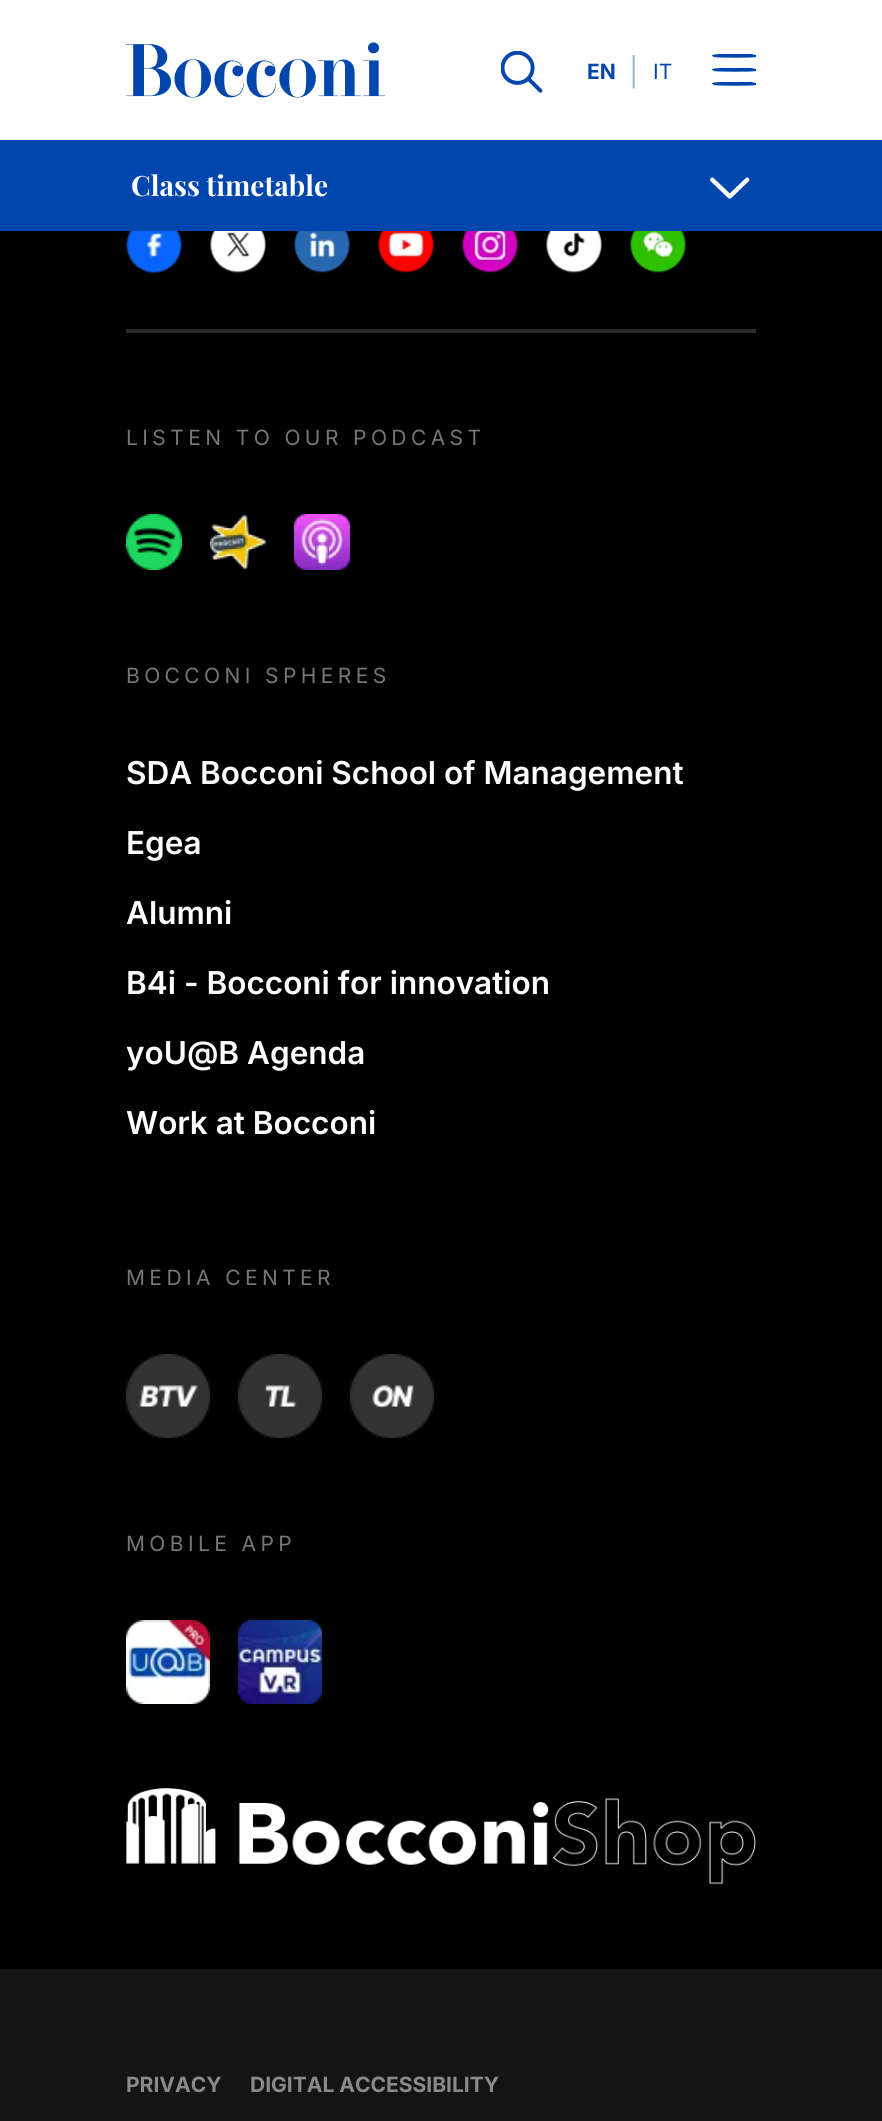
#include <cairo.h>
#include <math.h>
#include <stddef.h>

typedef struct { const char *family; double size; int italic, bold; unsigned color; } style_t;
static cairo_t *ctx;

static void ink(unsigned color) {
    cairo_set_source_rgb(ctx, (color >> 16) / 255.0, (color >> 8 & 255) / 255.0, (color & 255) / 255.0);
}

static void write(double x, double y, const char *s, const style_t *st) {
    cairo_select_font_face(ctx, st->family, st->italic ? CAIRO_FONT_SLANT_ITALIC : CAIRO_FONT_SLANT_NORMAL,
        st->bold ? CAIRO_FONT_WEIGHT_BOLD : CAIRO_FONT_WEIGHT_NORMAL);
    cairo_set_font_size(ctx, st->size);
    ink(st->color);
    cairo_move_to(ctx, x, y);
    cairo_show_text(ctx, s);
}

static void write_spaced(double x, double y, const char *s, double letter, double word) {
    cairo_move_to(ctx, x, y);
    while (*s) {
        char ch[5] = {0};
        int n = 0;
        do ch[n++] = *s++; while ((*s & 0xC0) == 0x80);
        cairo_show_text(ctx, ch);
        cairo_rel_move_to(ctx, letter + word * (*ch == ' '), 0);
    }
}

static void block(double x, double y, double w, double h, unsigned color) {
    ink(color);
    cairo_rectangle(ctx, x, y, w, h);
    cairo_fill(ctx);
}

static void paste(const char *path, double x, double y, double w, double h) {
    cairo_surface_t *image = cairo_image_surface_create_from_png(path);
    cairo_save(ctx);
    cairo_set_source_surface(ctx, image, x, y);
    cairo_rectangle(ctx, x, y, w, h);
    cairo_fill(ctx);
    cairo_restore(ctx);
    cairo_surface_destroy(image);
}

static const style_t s1 = {"Inter", 21, 0, 1, 0x0046ad};
static const style_t s2 = {"Inter", 28, 0, 0, 0xa2b8d9};
static const style_t s3 = {"Inter", 21, 0, 0, 0x0046ad};
static const style_t s4 = {"Playfair Display", 28, 0, 1, 0xffffff};
static const style_t s5 = {"Inter SemiBold", 31.5, 0, 0, 0xffffff};
static const style_t s6 = {"Inter", 21, 0, 1, 0x8a8a8a};

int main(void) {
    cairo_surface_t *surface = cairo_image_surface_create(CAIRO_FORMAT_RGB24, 882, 2121);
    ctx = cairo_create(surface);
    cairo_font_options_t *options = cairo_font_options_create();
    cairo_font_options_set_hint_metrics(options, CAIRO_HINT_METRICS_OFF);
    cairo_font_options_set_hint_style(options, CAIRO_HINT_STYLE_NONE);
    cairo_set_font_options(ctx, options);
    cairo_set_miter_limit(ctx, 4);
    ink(0x000000);
    cairo_paint(ctx);
    block(0, 0, 882, 140, 0xffffff);
    paste("pic1.png", 126, 42, 259, 56);
    paste("pic2.png", 501, 51, 42, 42);
    write(587, 79, "EN", &s1);
    write(629, 82, "|", &s2);
    write(653, 79, "IT", &s3);
    cairo_new_path(ctx);
    cairo_move_to(ctx, 722, 54);
    cairo_line_to(ctx, 751, 54);
    cairo_line_to(ctx, 756, 55);
    cairo_line_to(ctx, 756, 57);
    cairo_curve_to(ctx, 753, 58, 717, 58, 714, 57);
    cairo_curve_to(ctx, 707, 54, 721, 54, 722, 54);
    cairo_close_path(ctx);
    cairo_move_to(ctx, 722, 68);
    cairo_line_to(ctx, 751, 68);
    cairo_line_to(ctx, 756, 69);
    cairo_line_to(ctx, 756, 71);
    cairo_curve_to(ctx, 753, 72, 717, 72, 714, 71);
    cairo_curve_to(ctx, 707, 68, 721, 68, 722, 68);
    cairo_close_path(ctx);
    cairo_move_to(ctx, 722, 82);
    cairo_line_to(ctx, 751, 82);
    cairo_line_to(ctx, 756, 83);
    cairo_line_to(ctx, 756, 85);
    cairo_curve_to(ctx, 753, 86, 717, 86, 714, 85);
    cairo_curve_to(ctx, 707, 82, 721, 82, 722, 82);
    cairo_close_path(ctx);
    cairo_fill(ctx);
    block(0, 140, 882, 91, 0x0046ad);
    write(131, 196, "Class timetable", &s4);
    paste("pic3.png", 710, 177, 40, 22);
    paste("pic4.png", 126, 231, 56, 42);
    paste("pic5.png", 210, 231, 56, 42);
    paste("pic6.png", 294, 231, 56, 42);
    paste("pic7.png", 378, 231, 56, 42);
    paste("pic8.png", 462, 231, 56, 42);
    paste("pic9.png", 546, 231, 56, 42);
    paste("pic10.png", 630, 231, 56, 42);
    block(126, 329, 630, 4, 0x2b2b2b);
    cairo_select_font_face(ctx, "Inter", CAIRO_FONT_SLANT_NORMAL, CAIRO_FONT_WEIGHT_NORMAL);
    cairo_set_font_size(ctx, 21);
    ink(0x767676);
    write_spaced(126, 445, "LISTEN TO OUR PODCAST", 4.4, 0);
    paste("pic11.png", 126, 514, 56, 56);
    paste("pic12.png", 210, 514, 56, 56);
    paste("pic13.png", 294, 514, 56, 56);
    write_spaced(126, 683, "BOCCONI SPHERES", 4.4, 0);
    write(126, 784, "SDA Bocconi School of Management", &s5);
    write(126, 854, "Egea", &s5);
    write(126, 924, "Alumni", &s5);
    write(126, 994, "B4i - Bocconi for innovation", &s5);
    write(126, 1064, "yoU@B Agenda", &s5);
    write(126, 1134, "Work at Bocconi", &s5);
    cairo_select_font_face(ctx, "Inter", CAIRO_FONT_SLANT_NORMAL, CAIRO_FONT_WEIGHT_NORMAL);
    cairo_set_font_size(ctx, 21);
    ink(0x767676);
    write_spaced(126, 1285, "MEDIA CENTER", 4.4, 0);
    paste("pic14.png", 126, 1354, 84, 84);
    paste("pic15.png", 238, 1354, 84, 84);
    paste("pic16.png", 350, 1354, 84, 84);
    write_spaced(126, 1551, "MOBILE APP", 4.4, 0);
    paste("pic17.png", 126, 1620, 84, 84);
    paste("pic18.png", 238, 1620, 84, 84);
    paste("pic19.png", 126, 1788, 630, 97);
    block(0, 1969, 882, 152, 0x141414);
    write(126, 2092, "PRIVACY", &s6);
    write(250, 2092, "DIGITAL ACCESSIBILITY", &s6);
    cairo_surface_write_to_png(surface, "screenshot.png");
    cairo_font_options_destroy(options);
    cairo_destroy(ctx);
    cairo_surface_destroy(surface);
    return 0;
}
